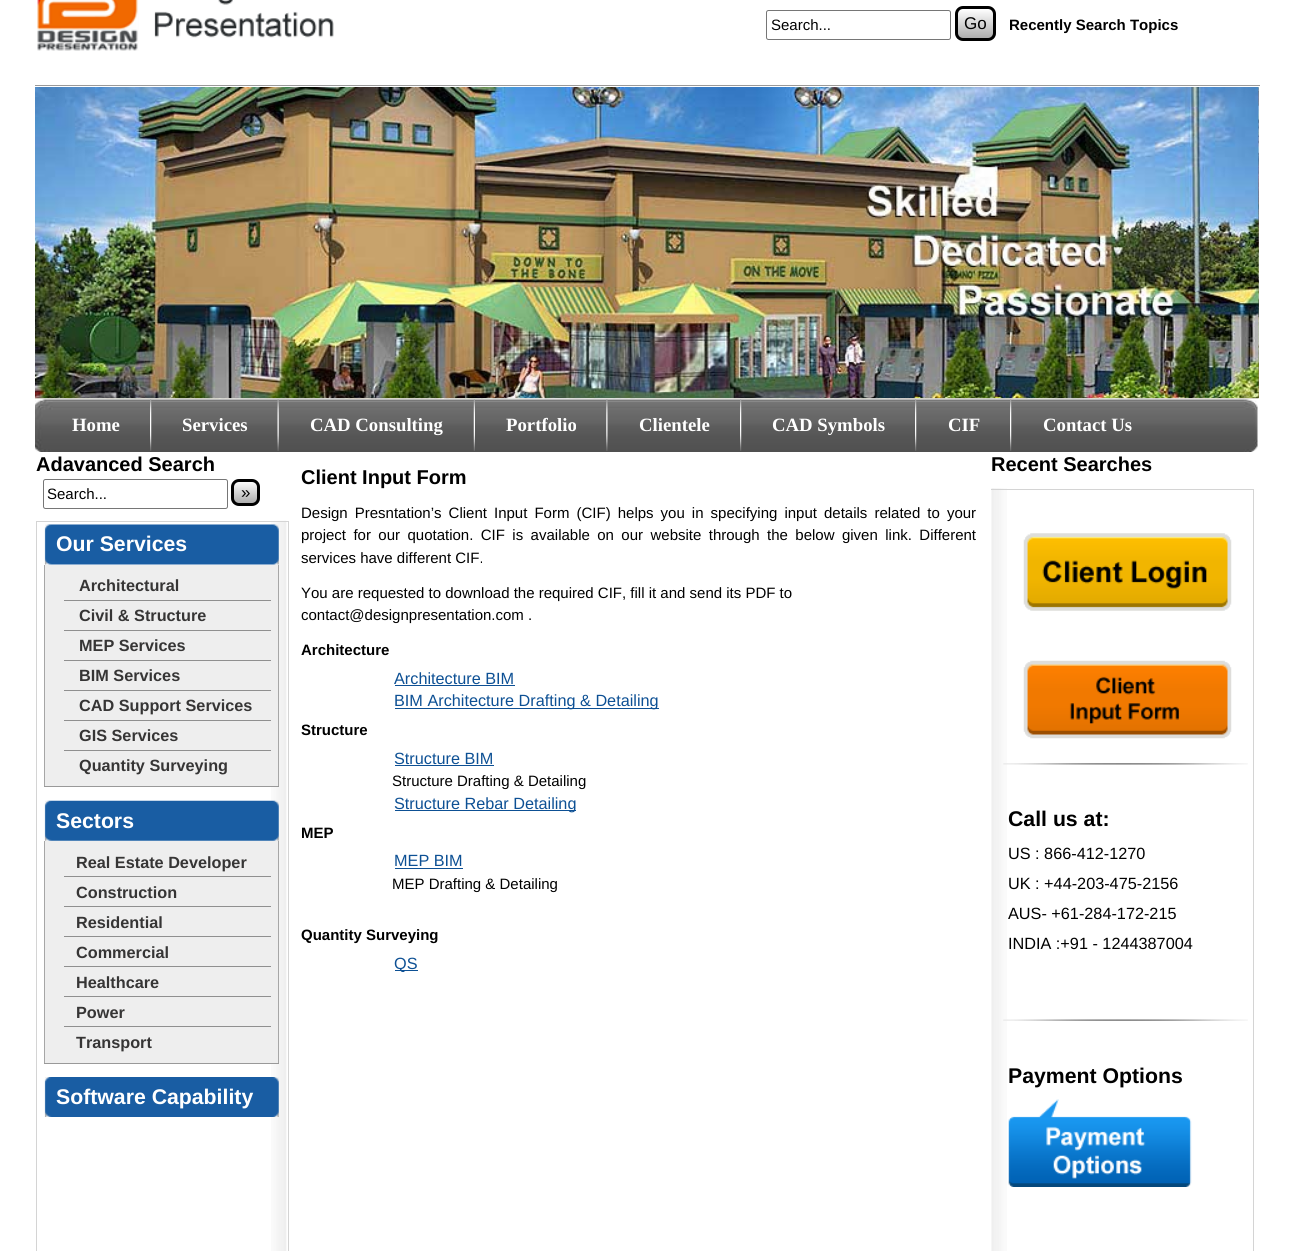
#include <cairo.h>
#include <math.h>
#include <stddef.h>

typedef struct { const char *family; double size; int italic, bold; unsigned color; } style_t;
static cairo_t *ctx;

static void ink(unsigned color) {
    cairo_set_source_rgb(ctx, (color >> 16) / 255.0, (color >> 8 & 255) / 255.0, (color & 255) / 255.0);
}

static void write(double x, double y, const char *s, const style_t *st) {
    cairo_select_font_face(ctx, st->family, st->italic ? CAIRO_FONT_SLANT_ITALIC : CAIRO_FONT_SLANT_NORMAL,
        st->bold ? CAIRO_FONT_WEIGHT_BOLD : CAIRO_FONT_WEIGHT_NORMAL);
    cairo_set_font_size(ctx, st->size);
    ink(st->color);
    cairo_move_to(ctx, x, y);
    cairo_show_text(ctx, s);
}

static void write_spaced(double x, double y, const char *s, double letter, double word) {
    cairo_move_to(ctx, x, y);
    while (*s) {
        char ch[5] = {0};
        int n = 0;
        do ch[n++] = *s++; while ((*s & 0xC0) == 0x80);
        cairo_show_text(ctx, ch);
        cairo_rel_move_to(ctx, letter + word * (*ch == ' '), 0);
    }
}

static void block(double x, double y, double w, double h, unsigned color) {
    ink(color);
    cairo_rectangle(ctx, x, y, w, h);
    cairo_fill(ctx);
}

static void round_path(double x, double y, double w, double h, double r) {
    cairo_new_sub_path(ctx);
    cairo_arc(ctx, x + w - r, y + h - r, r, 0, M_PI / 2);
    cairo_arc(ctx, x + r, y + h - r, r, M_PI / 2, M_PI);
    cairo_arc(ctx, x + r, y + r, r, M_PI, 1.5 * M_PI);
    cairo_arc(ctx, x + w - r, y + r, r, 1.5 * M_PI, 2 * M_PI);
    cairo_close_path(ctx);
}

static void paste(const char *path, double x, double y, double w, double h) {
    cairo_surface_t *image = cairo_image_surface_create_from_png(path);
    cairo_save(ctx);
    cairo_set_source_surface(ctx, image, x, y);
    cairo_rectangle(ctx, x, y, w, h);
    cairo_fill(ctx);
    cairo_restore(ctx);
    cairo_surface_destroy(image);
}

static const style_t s1 = {"Liberation Sans", 15, 0, 0, 0x000000};
static const style_t s2 = {"Liberation Sans", 17, 0, 0, 0x000000};
static const style_t s3 = {"Liberation Sans", 15, 0, 1, 0x000000};
static const style_t s4 = {"Liberation Serif", 18.75, 0, 1, 0xffffff};
static const style_t s5 = {"Liberation Sans", 20, 0, 1, 0x000000};
static const style_t s6 = {"Liberation Sans", 21.25, 0, 1, 0xffffff};
static const style_t s7 = {"Liberation Sans", 16.25, 0, 1, 0x363535};
static const style_t s8 = {"Liberation Sans", 16.25, 0, 0, 0x0d5094};
static const style_t s9 = {"Liberation Sans", 21.25, 0, 1, 0x000000};
static const style_t s10 = {"Liberation Sans", 16.25, 0, 0, 0x000000};

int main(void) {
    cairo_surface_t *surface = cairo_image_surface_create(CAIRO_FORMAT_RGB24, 1293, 1251);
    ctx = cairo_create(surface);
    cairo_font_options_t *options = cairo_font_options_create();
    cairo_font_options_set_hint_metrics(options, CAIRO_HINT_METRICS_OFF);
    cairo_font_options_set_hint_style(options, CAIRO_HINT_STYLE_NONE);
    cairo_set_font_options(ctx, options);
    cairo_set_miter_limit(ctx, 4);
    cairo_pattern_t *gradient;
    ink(0xffffff);
    cairo_paint(ctx);
    block(35, 85, 1225, 1, 0x999999);
    paste("pic1.png", 37, 0, 297, 51);
    round_path(766.5, 10.5, 184, 29, 2);
    ink(0x767676);
    cairo_set_line_width(ctx, 1);
    cairo_stroke(ctx);
    write(771, 30, "Search...", &s1);
    cairo_save(ctx);
    round_path(955, 6, 41, 35, 8);
    cairo_clip(ctx);
    gradient = cairo_pattern_create_linear(958, 9, 958, 39);
    cairo_pattern_add_color_stop_rgba(gradient, 0, 1, 1, 1, 1);
    cairo_pattern_add_color_stop_rgba(gradient, 1, 0.667, 0.667, 0.667, 1);
    cairo_set_source(ctx, gradient);
    cairo_pattern_destroy(gradient);
    cairo_rectangle(ctx, 955, 9, 41, 30);
    cairo_fill(ctx);
    cairo_restore(ctx);
    round_path(956.5, 7.5, 38, 32, 6.5);
    cairo_set_line_width(ctx, 3);
    cairo_stroke(ctx);
    write(964, 29, "Go", &s2);
    write(1009, 30, "Recently Search Topics", &s3);
    paste("pic2.png", 35, 87, 1224, 312);
    paste("pic3.png", 35, 87, 1224, 312);
    paste("pic4.png", 35, 87, 1224, 312);
    paste("pic5.png", 35, 87, 1224, 312);
    paste("pic6.png", 35, 87, 1224, 312);
    paste("pic7.png", 35, 399, 1223, 53);
    paste("pic8.png", 150, 399, 2, 52);
    write(72, 431, "Home", &s4);
    paste("pic9.png", 277, 399, 2, 52);
    write(182, 431, "Services", &s4);
    paste("pic10.png", 473, 399, 2, 52);
    write(310, 431, "CAD Consulting", &s4);
    paste("pic11.png", 606, 399, 2, 52);
    write(506, 431, "Portfolio", &s4);
    paste("pic8.png", 740, 399, 2, 52);
    write(639, 431, "Clientele", &s4);
    paste("pic8.png", 915, 399, 2, 52);
    write(772, 431, "CAD Symbols", &s4);
    paste("pic8.png", 1010, 399, 2, 52);
    write(948, 431, "CIF", &s4);
    write(1043, 431, "Contact Us", &s4);
    write(36, 471, "Adavanced Search", &s5);
    round_path(43.5, 479.5, 184, 29, 2);
    ink(0x767676);
    cairo_set_line_width(ctx, 1);
    cairo_stroke(ctx);
    write(47, 499, "Search...", &s1);
    cairo_save(ctx);
    round_path(231, 479, 29, 27, 8);
    cairo_clip(ctx);
    gradient = cairo_pattern_create_linear(234, 481, 234, 504);
    cairo_pattern_add_color_stop_rgba(gradient, 0, 1, 1, 1, 1);
    cairo_pattern_add_color_stop_rgba(gradient, 1, 0.667, 0.667, 0.667, 1);
    cairo_set_source(ctx, gradient);
    cairo_pattern_destroy(gradient);
    cairo_rectangle(ctx, 231, 481, 29, 23);
    cairo_fill(ctx);
    cairo_restore(ctx);
    round_path(232.5, 480.5, 26, 24, 6.5);
    cairo_set_line_width(ctx, 3);
    cairo_stroke(ctx);
    write(241, 498, "»", &s2);
    paste("pic12.png", 271, 520, 16, 731);
    cairo_rectangle(ctx, 36.5, 521.5, 252, 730);
    ink(0xd4d4d4);
    cairo_set_line_width(ctx, 1);
    cairo_stroke(ctx);
    paste("pic13.png", 44, 524, 235, 41);
    write(56, 551, "Our Services", &s6);
    block(45, 565, 233, 221, 0xeeeeee);
    block(278, 565, 1, 221, 0xa6a6a6);
    block(44, 565, 1, 221, 0xa6a6a6);
    block(64, 600, 207, 1, 0x8f8f8f);
    write(79, 591, "Architectural", &s7);
    block(64, 630, 207, 1, 0x8f8f8f);
    write(79, 621, "Civil & Structure", &s7);
    block(64, 660, 207, 1, 0x8f8f8f);
    write(79, 651, "MEP Services", &s7);
    block(64, 690, 207, 1, 0x8f8f8f);
    write(79, 681, "BIM Services", &s7);
    block(64, 720, 207, 1, 0x8f8f8f);
    write(79, 711, "CAD Support Services", &s7);
    block(64, 750, 207, 1, 0x8f8f8f);
    write(79, 741, "GIS Services", &s7);
    write(79, 771, "Quantity Surveying", &s7);
    block(44, 786, 235, 1, 0x999999);
    paste("pic14.png", 44, 800, 235, 41);
    write(56, 828, "Sectors", &s6);
    block(45, 841, 233, 222, 0xeeeeee);
    block(278, 841, 1, 222, 0xa6a6a6);
    block(44, 841, 1, 222, 0xa6a6a6);
    block(64, 876, 207, 1, 0x8f8f8f);
    write(76, 868, "Real Estate Developer", &s7);
    block(64, 906, 207, 1, 0x8f8f8f);
    write(76, 898, "Construction", &s7);
    block(64, 936, 207, 1, 0x8f8f8f);
    write(76, 928, "Residential", &s7);
    block(64, 966, 207, 1, 0x8f8f8f);
    write(76, 958, "Commercial", &s7);
    block(64, 996, 207, 1, 0x8f8f8f);
    write(76, 988, "Healthcare", &s7);
    block(64, 1026, 207, 1, 0x8f8f8f);
    write(76, 1018, "Power", &s7);
    write(76, 1048, "Transport", &s7);
    block(44, 1063, 235, 1, 0x999999);
    paste("pic15.png", 44, 1077, 235, 40);
    write(56, 1104, "Software Capability", &s6);
    write(301, 484, "Client Input Form", &s5);
    cairo_select_font_face(ctx, "Liberation Sans", CAIRO_FONT_SLANT_NORMAL, CAIRO_FONT_WEIGHT_NORMAL);
    cairo_set_font_size(ctx, 15);
    write_spaced(301, 518, "Design Presntation’s Client Input Form (CIF) helps you in specifying input details related to your", 0, 2.9);
    write_spaced(301, 540, "project for our quotation. CIF is available on our website through the below given link. Different", 0, 3.25);
    write(301, 563, "services have different CIF.", &s1);
    write(301, 598, "You are requested to download the required CIF, fill it and send its PDF to", &s1);
    write(301, 620, "contact@designpresentation.com .", &s1);
    write(301, 655, "Architecture", &s3);
    write(394, 684, "Architecture BIM", &s8);
    block(395, 685, 120, 1, 0x0d5094);
    block(395, 708, 264, 1, 0x0d5094);
    write(394, 706, "BIM Architecture Drafting & Detailing", &s8);
    write(301, 735, "Structure", &s3);
    write(394, 764, "Structure BIM", &s8);
    block(395, 765, 99, 1, 0x0d5094);
    write(392, 786, "Structure Drafting & Detailing", &s1);
    block(395, 810, 181, 1, 0x0d5094);
    write(394, 809, "Structure Rebar Detailing", &s8);
    write(301, 838, "MEP", &s3);
    write(394, 866, "MEP BIM", &s8);
    block(395, 868, 68, 1, 0x0d5094);
    write(392, 889, "MEP Drafting & Detailing", &s1);
    write(301, 940, "Quantity Surveying", &s3);
    block(395, 970, 23, 1, 0x0d5094);
    write(394, 969, "QS", &s8);
    write(991, 471, "Recent Searches", &s5);
    paste("pic16.png", 991, 488, 16, 763);
    cairo_save(ctx);
    cairo_rectangle(ctx, 991, 454, 263, 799);
    cairo_clip(ctx);
    cairo_rectangle(ctx, 989.5, 489.5, 264, 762);
    ink(0xd4d4d4);
    cairo_stroke(ctx);
    cairo_restore(ctx);
    paste("pic17.png", 1023, 533, 209, 78);
    paste("pic18.png", 1023, 660, 209, 79);
    paste("pic19.png", 1003, 763, 245, 2);
    write(1008, 826, "Call us at:", &s9);
    write(1008, 859, "US : 866-412-1270", &s10);
    write(1008, 889, "UK : +44-203-475-2156", &s10);
    write(1008, 919, "AUS- +61-284-172-215", &s10);
    write(1008, 949, "INDIA :+91 - 1244387004", &s10);
    paste("pic20.png", 1003, 1019, 245, 2);
    write(1008, 1083, "Payment Options", &s9);
    paste("pic21.png", 1008, 1099, 184, 88);
    cairo_surface_write_to_png(surface, "screenshot.png");
    cairo_font_options_destroy(options);
    cairo_destroy(ctx);
    cairo_surface_destroy(surface);
    return 0;
}
